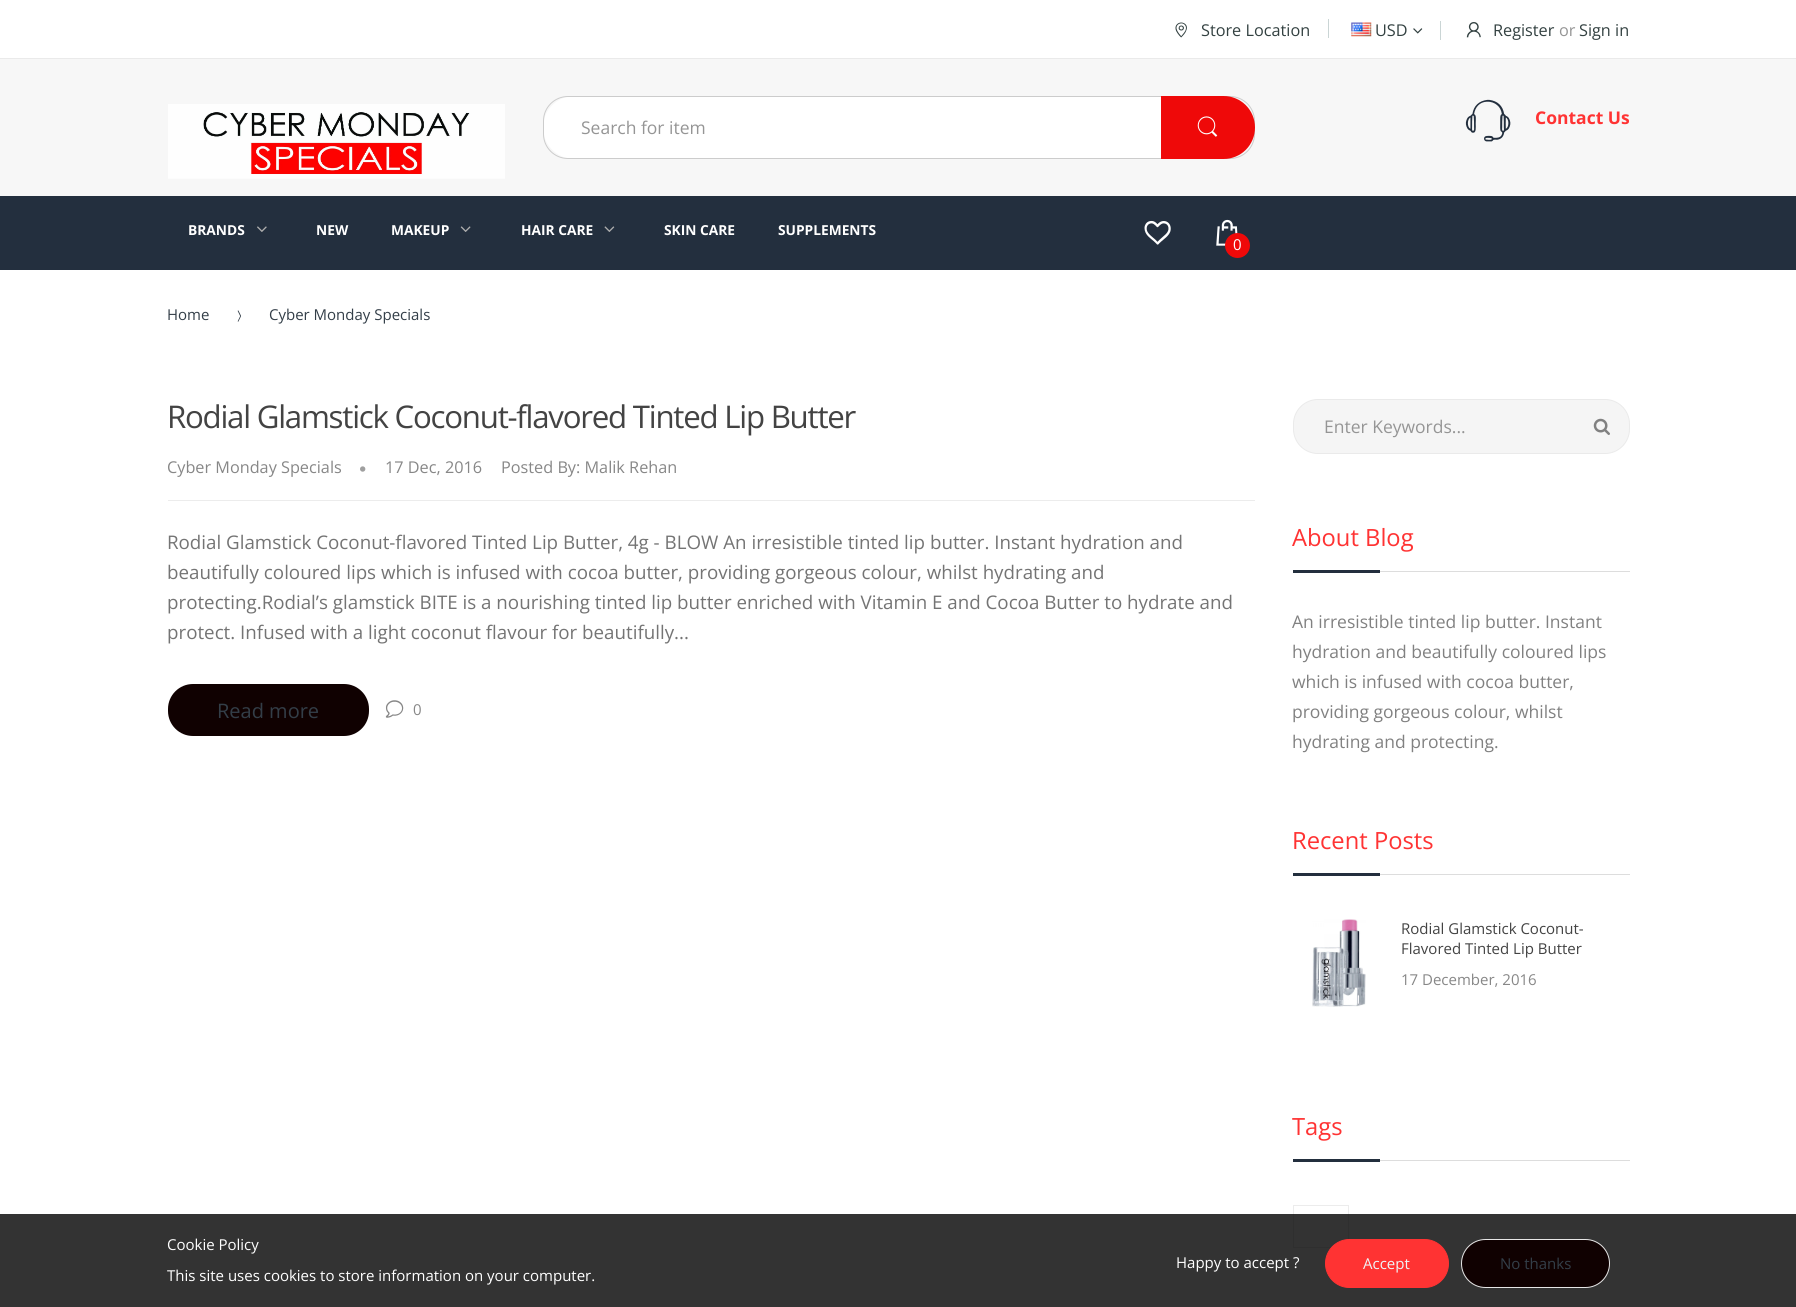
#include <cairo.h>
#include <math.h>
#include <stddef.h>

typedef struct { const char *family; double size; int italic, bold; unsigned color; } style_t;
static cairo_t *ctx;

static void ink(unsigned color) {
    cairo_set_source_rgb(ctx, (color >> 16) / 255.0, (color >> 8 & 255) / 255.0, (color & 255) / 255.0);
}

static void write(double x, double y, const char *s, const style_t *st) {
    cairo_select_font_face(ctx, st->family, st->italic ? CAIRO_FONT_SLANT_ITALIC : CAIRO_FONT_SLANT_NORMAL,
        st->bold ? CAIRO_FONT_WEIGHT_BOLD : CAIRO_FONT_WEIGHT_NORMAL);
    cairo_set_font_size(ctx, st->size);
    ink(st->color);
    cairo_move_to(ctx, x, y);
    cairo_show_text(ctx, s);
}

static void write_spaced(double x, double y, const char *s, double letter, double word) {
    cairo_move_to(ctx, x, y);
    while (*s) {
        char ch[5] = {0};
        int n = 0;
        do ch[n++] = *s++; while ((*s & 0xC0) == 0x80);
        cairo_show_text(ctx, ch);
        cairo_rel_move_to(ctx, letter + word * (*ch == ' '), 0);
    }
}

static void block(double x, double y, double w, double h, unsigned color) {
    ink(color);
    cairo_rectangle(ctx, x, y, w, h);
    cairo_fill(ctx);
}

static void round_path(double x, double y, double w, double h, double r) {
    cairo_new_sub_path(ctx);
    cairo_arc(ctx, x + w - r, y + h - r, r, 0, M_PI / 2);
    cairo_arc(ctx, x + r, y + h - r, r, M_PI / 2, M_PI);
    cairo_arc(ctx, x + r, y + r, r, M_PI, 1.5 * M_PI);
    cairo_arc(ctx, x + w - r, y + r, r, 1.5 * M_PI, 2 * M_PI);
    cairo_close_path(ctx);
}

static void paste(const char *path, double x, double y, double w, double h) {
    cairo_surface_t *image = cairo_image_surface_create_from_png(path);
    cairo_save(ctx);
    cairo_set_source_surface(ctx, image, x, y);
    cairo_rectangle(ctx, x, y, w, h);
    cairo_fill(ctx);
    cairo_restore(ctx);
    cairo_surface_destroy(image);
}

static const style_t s1 = {"Open Sans", 16.25, 0, 0, 0x334141};
static const style_t s2 = {"Open Sans", 16.25, 0, 0, 0x959595};
static const style_t s3 = {"Open Sans", 17.5, 0, 1, 0xff3333};
static const style_t s4 = {"Open Sans", 17.5, 0, 0, 0x959595};
static const style_t s5 = {"Open Sans", 13.75, 0, 1, 0xffffff};
static const style_t s6 = {"Open Sans", 15, 0, 0, 0xffffff};
static const style_t s7 = {"Open Sans", 15, 0, 0, 0x333e48};
static const style_t s8 = {"Open Sans", 16.25, 0, 0, 0x878787};
static const style_t s9 = {"Open Sans", 18.75, 0, 0, 0x747474};
static const style_t s10 = {"Open Sans", 20, 0, 0, 0x333e48};
static const style_t s11 = {"Open Sans", 15, 0, 0, 0x878787};
static const style_t s12 = {"Open Sans", 23.75, 0, 0, 0xff3333};
static const style_t s13 = {"Open Sans", 17.5, 0, 0, 0x818181};
static const style_t s14 = {"Open Sans", 15, 0, 0, 0x434343};
static const style_t s15 = {"Open Sans", 15, 0, 0, 0xeef4f7};

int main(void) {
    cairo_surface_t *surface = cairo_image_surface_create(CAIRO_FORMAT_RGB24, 1796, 1307);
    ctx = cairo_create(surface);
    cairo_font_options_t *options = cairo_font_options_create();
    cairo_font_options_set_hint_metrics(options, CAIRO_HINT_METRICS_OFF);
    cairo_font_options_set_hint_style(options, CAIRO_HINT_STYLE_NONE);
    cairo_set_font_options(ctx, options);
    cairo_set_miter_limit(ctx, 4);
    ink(0xffffff);
    cairo_paint(ctx);
    block(0, 59, 1796, 137, 0xf7f7f7);
    block(0, 58, 1796, 1, 0xeaeaea);
    paste("pic1.png", 1175, 22, 12, 16);
    write(1201, 36, "Store Location", &s1);
    block(1328, 19, 1, 19, 0xcad5d5);
    paste("pic2.png", 1351, 22, 21, 15);
    write(1375, 36, "USD", &s1);
    paste("pic3.png", 1413, 28, 10, 6);
    block(1440, 21, 1, 19, 0xcad5d5);
    paste("pic4.png", 1466, 22, 15, 16);
    write(1493, 36, "Register", &s1);
    write(1559, 36, "or", &s2);
    write(1579, 36, "Sign in", &s1);
    paste("pic5.png", 168, 104, 337, 75);
    paste("pic6.png", 1465, 99, 46, 43);
    write(1535, 124, "Contact Us", &s3);
    ink(0xffffff);
    round_path(543, 96, 712, 63, 31.5);
    cairo_fill(ctx);
    round_path(543.5, 96.5, 711, 62, 24.5);
    ink(0xcccccc);
    cairo_set_line_width(ctx, 1);
    cairo_stroke(ctx);
    write(581, 134, "Search for item", &s4);
    ink(0xef0909);
    cairo_new_path(ctx);
    cairo_move_to(ctx, 1161, 96);
    cairo_line_to(ctx, 1223.5, 96);
    cairo_curve_to(ctx, 1241, 96, 1255, 110, 1255, 127.5);
    cairo_curve_to(ctx, 1255, 145, 1241, 159, 1223.5, 159);
    cairo_line_to(ctx, 1161, 159);
    cairo_close_path(ctx);
    cairo_fill(ctx);
    paste("pic7.png", 1197, 116, 21, 21);
    block(0, 196, 1796, 74, 0x232f3e);
    write(188, 235, "BRANDS", &s5);
    paste("pic8.png", 257, 226, 10, 6);
    write(316, 235, "NEW", &s5);
    write(391, 235, "MAKEUP", &s5);
    paste("pic9.png", 460, 226, 11, 6);
    write(521, 235, "HAIR CARE", &s5);
    paste("pic10.png", 604, 226, 11, 6);
    write(664, 235, "SKIN CARE", &s5);
    write(778, 235, "SUPPLEMENTS", &s5);
    paste("pic11.png", 1144, 220, 27, 25);
    paste("pic12.png", 1216, 219, 22, 27);
    ink(0xef0909);
    cairo_arc(ctx, 1237.5, 245.5, 12.5, 0, 2 * M_PI);
    cairo_fill(ctx);
    write(1233, 250, "0", &s6);
    write(167, 320, "Home", &s7);
    paste("pic13.png", 237, 310, 4, 12);
    write(269, 320, "Cyber Monday Specials", &s7);
    cairo_set_font_size(ctx, 31.25);
    ink(0x434343);
    write_spaced(167, 428, "Rodial Glamstick Coconut-flavored Tinted Lip Butter", -1.25, 0);
    block(168, 500, 1087, 1, 0xececec);
    write(167, 473, "Cyber Monday Specials", &s8);
    paste("pic14.png", 360, 466, 6, 6);
    write(385, 473, "17 Dec, 2016", &s8);
    write(501, 473, "Posted By: Malik Rehan", &s8);
    write(167, 549, "Rodial Glamstick Coconut-flavored Tinted Lip Butter, 4g - BLOW An irresistible tinted lip butter. Instant hydration and", &s9);
    write(167, 579, "beautifully coloured lips which is infused with cocoa butter, providing gorgeous colour, whilst hydrating and", &s9);
    write(167, 609, "protecting.Rodial’s glamstick BITE is a nourishing tinted lip butter enriched with Vitamin E and Cocoa Butter to hydrate and", &s9);
    write(167, 639, "protect. Infused with a light coconut flavour for beautifully...", &s9);
    ink(0x100101);
    round_path(168, 684, 201, 52, 25);
    cairo_fill(ctx);
    write(217, 718, "Read more", &s10);
    paste("pic15.png", 385, 700, 19, 18);
    write(413, 715, "0", &s11);
    ink(0xf5f5f5);
    round_path(1293.5, 399.5, 336, 54, 24.5);
    cairo_fill_preserve(ctx);
    ink(0xeaeaea);
    cairo_stroke(ctx);
    write(1324, 433, "Enter Keywords...", &s4);
    paste("pic16.png", 1593, 418, 17, 17);
    block(1380, 571, 250, 1, 0xdddddd);
    write(1292, 546, "About Blog", &s12);
    block(1293, 570, 87, 3, 0x232f3e);
    write(1292, 628, "An irresistible tinted lip butter. Instant", &s13);
    write(1292, 658, "hydration and beautifully coloured lips", &s13);
    write(1292, 688, "which is infused with cocoa butter,", &s13);
    write(1292, 718, "providing gorgeous colour, whilst", &s13);
    write(1292, 748, "hydrating and protecting.", &s13);
    block(1380, 874, 250, 1, 0xdddddd);
    write(1292, 849, "Recent Posts", &s12);
    block(1293, 873, 87, 3, 0x232f3e);
    paste("pic17.png", 1312, 919, 54, 88);
    write(1401, 934, "Rodial Glamstick Coconut-", &s14);
    write(1401, 954, "Flavored Tinted Lip Butter", &s14);
    write(1401, 985, "17 December, 2016", &s11);
    block(1380, 1160, 250, 1, 0xdddddd);
    write(1292, 1135, "Tags", &s12);
    block(1293, 1159, 87, 3, 0x232f3e);
    cairo_rectangle(ctx, 1293.5, 1205.5, 55, 42);
    ink(0xececec);
    cairo_stroke(ctx);
    cairo_set_source_rgba(ctx, 0, 0, 0, 0.8);
    cairo_rectangle(ctx, 0, 1214, 1796, 93);
    cairo_fill(ctx);
    write(167, 1250, "Cookie Policy", &s6);
    write(1176, 1268, "Happy to accept ?", &s6);
    ink(0xff3333);
    round_path(1325.5, 1239.5, 123, 48, 24);
    cairo_fill_preserve(ctx);
    cairo_stroke(ctx);
    write(1363, 1269, "Accept", &s15);
    ink(0x100101);
    round_path(1461.5, 1239.5, 148, 48, 24);
    cairo_fill_preserve(ctx);
    ink(0xe6e6e6);
    cairo_stroke(ctx);
    write(1500, 1269, "No thanks", &s7);
    write(167, 1281, "This site uses cookies to store information on your computer.", &s6);
    cairo_surface_write_to_png(surface, "screenshot.png");
    cairo_font_options_destroy(options);
    cairo_destroy(ctx);
    cairo_surface_destroy(surface);
    return 0;
}
